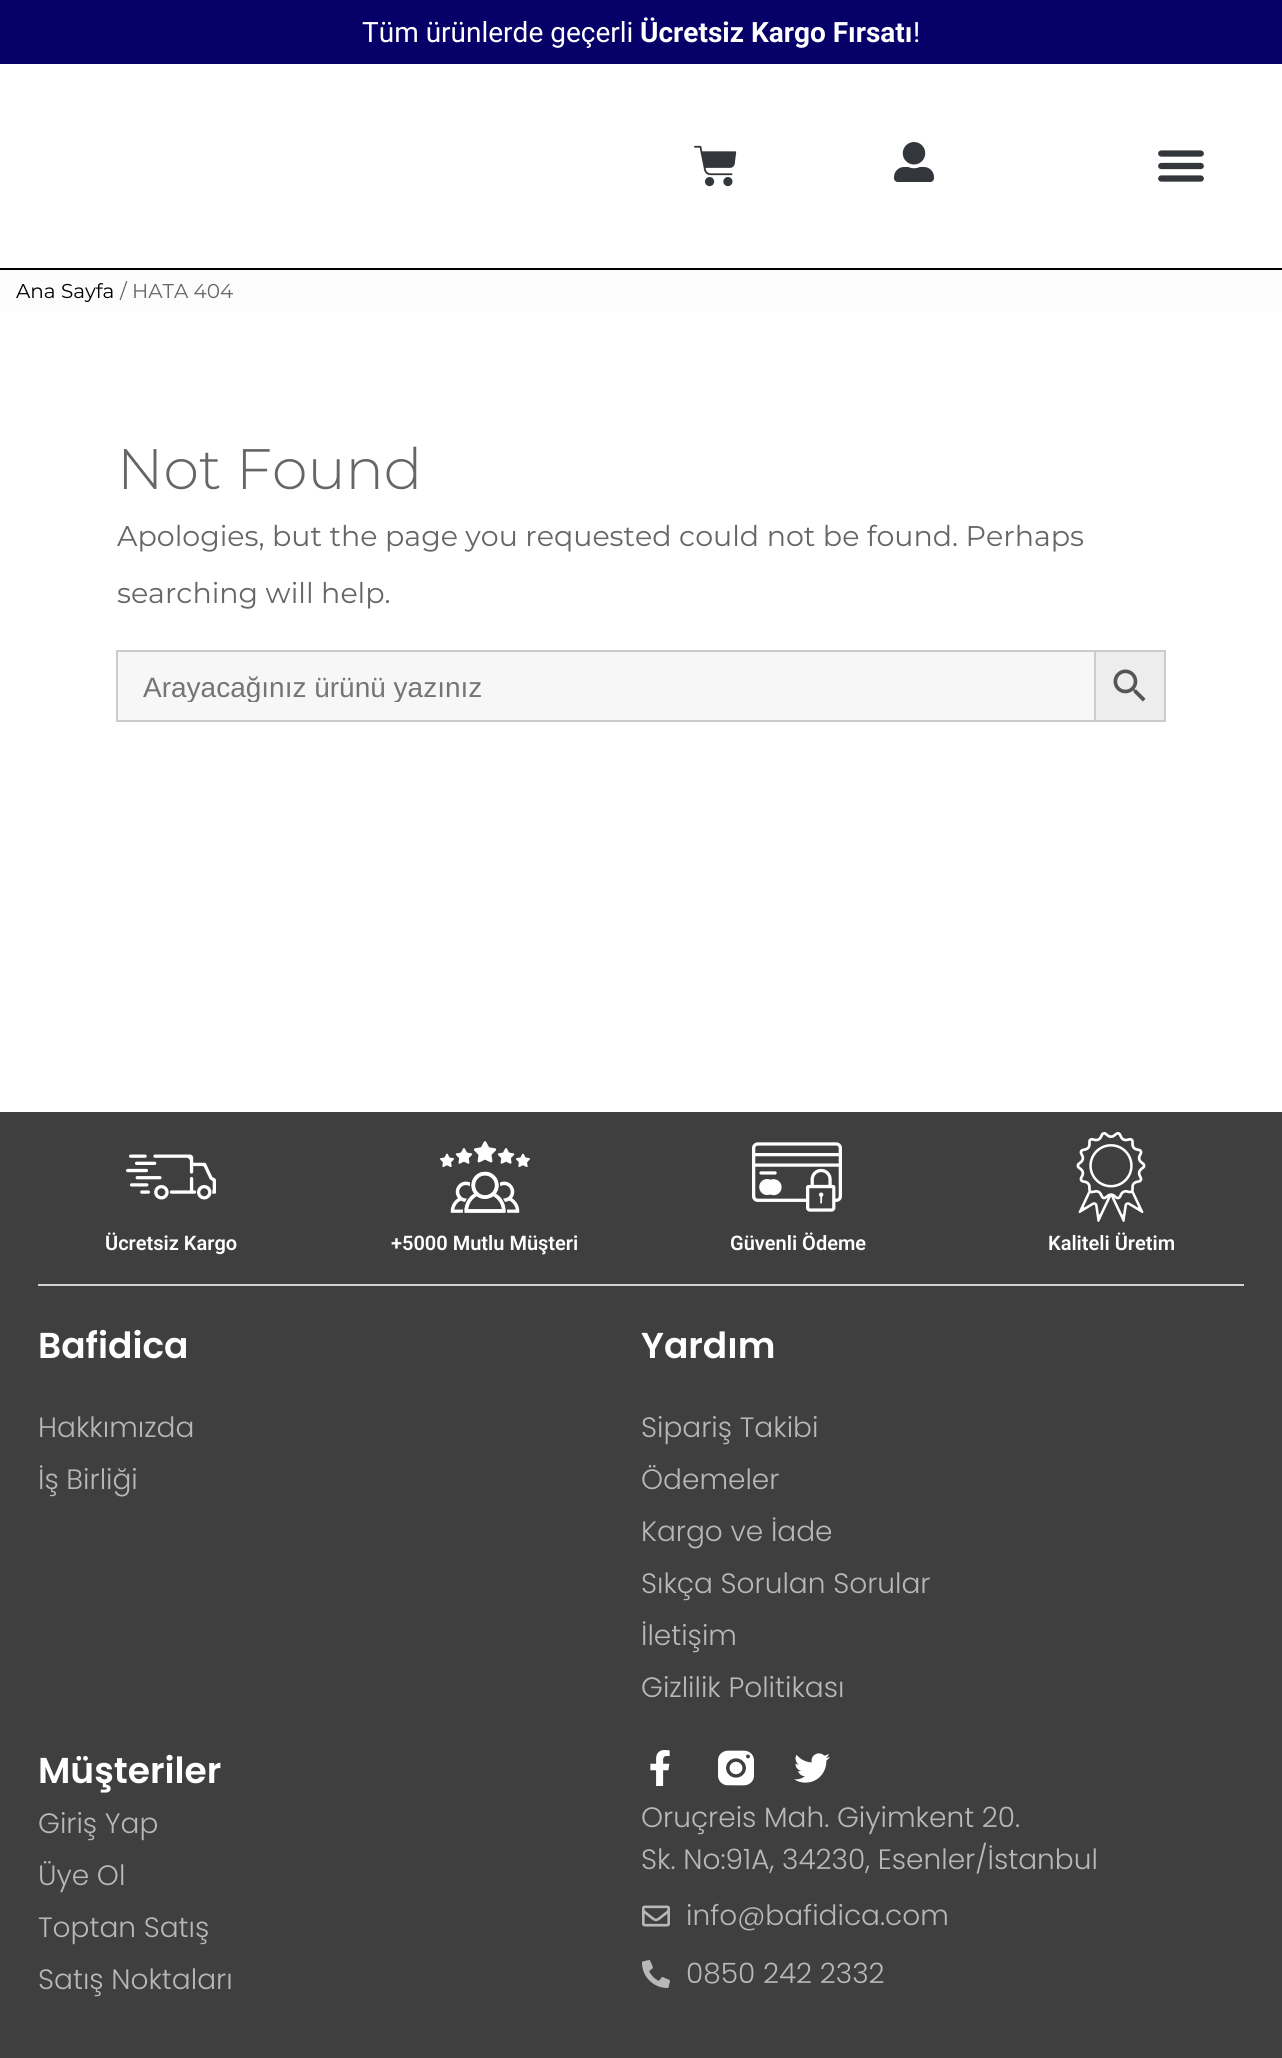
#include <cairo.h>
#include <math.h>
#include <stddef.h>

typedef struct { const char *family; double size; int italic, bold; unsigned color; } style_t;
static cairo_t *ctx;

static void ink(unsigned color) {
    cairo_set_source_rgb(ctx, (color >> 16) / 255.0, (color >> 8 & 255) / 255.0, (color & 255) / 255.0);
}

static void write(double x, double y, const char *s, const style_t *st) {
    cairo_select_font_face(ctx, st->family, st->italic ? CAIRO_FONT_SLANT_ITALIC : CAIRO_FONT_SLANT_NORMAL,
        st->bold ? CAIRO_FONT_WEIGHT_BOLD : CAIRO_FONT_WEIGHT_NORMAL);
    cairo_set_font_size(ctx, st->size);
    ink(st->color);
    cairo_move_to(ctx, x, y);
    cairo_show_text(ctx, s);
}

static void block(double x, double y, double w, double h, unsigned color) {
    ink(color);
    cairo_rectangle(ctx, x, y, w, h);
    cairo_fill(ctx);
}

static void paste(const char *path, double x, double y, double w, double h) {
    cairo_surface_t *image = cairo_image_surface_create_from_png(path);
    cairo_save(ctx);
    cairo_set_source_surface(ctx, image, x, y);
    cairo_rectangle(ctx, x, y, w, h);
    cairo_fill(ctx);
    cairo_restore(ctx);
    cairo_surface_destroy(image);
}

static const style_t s1 = {"Roboto", 28, 0, 0, 0xffffff};
static const style_t s2 = {"Roboto", 28, 0, 1, 0xffffff};
static const style_t s3 = {"Montserrat", 20, 0, 0, 0x000000};
static const style_t s4 = {"Montserrat", 20, 0, 0, 0x666666};
static const style_t s5 = {"Montserrat Light", 57, 0, 0, 0x666666};
static const style_t s6 = {"Montserrat", 28.5, 0, 0, 0x666666};
static const style_t s7 = {"Liberation Sans", 28, 0, 0, 0x757575};
static const style_t s8 = {"Roboto SemiBold", 20, 0, 0, 0xffffff};
static const style_t s9 = {"Poppins SemiBold", 36, 0, 0, 0xffffff};
static const style_t s10 = {"Poppins Light", 28, 0, 0, 0xb8b8b8};

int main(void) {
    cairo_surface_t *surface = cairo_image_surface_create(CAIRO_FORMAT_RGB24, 1282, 2058);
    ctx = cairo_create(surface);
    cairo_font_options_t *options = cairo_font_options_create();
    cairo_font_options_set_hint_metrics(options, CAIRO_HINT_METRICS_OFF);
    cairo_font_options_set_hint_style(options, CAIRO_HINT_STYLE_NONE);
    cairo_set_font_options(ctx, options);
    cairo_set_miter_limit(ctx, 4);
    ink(0xffffff);
    cairo_paint(ctx);
    block(0, 0, 1282, 64, 0x060069);
    write(362, 42, "Tüm ürünlerde geçerli", &s1);
    write(640, 42, "Ücretsiz Kargo Fırsatı", &s2);
    write(913, 42, "!", &s1);
    block(0, 268, 1282, 2, 0x000000);
    paste("pic1.png", 694, 145, 43, 42);
    paste("pic2.png", 894, 142, 40, 40);
    paste("pic3.png", 1158, 150, 46, 32);
    block(0, 270, 1282, 42, 0xfcfcfc);
    write(16, 298, "Ana Sayfa", &s3);
    write(120, 298, "/ HATA 404", &s4);
    write(117, 489, "Not Found", &s5);
    write(117, 546, "Apologies, but the page you requested could not be found. Perhaps", &s6);
    write(117, 603, "searching will help.", &s6);
    block(118, 652, 976, 68, 0xf7f7f7);
    block(116, 650, 978, 2, 0xcccccc);
    block(116, 720, 978, 2, 0xcccccc);
    block(116, 650, 2, 72, 0xcccccc);
    cairo_save(ctx);
    cairo_rectangle(ctx, 142, 670, 928, 32);
    cairo_clip(ctx);
    write(143, 697, "Arayacağınız ürünü yazınız", &s7);
    cairo_restore(ctx);
    ink(0xededed);
    cairo_rectangle(ctx, 1095, 651, 70, 70);
    cairo_fill_preserve(ctx);
    ink(0xcccccc);
    cairo_stroke(ctx);
    paste("pic4.png", 1113, 669, 33, 33);
    block(0, 1112, 1282, 946, 0x3f3f3f);
    paste("pic5.png", 126, 1154, 90, 46);
    write(105, 1250, "Ücretsiz Kargo", &s8);
    paste("pic6.png", 440, 1141, 90, 72);
    write(391, 1250, "+5000 Mutlu Müşteri", &s8);
    paste("pic7.png", 752, 1142, 90, 70);
    write(730, 1250, "Güvenli Ödeme", &s8);
    paste("pic8.png", 1076, 1132, 70, 90);
    write(1048, 1250, "Kaliteli Üretim", &s8);
    block(38, 1284, 1206, 2, 0xd3d3d3);
    write(38, 1358, "Bafidica", &s9);
    write(38, 1437, "Hakkımızda", &s10);
    write(38, 1489, "İş Birliği", &s10);
    write(641, 1358, "Yardım", &s9);
    write(641, 1437, "Sipariş Takibi", &s10);
    write(641, 1489, "Ödemeler", &s10);
    write(641, 1541, "Kargo ve İade", &s10);
    write(641, 1593, "Sıkça Sorulan Sorular", &s10);
    write(641, 1645, "İletişim", &s10);
    write(641, 1697, "Gizlilik Politikası", &s10);
    write(38, 1783, "Müşteriler", &s9);
    write(38, 1833, "Giriş Yap", &s10);
    write(38, 1885, "Üye Ol", &s10);
    write(38, 1937, "Toptan Satış", &s10);
    write(38, 1989, "Satış Noktaları", &s10);
    paste("pic9.png", 650, 1750, 20, 36);
    paste("pic10.png", 718, 1750, 36, 36);
    paste("pic11.png", 794, 1753, 36, 30);
    write(641, 1827, "Oruçreis Mah. Giyimkent 20.", &s10);
    write(641, 1869, "Sk. No:91A, 34230, Esenler/İstanbul", &s10);
    paste("pic12.png", 642, 1905, 28, 22);
    write(686, 1925, "info@bafidica.com", &s10);
    paste("pic13.png", 642, 1960, 28, 28);
    write(686, 1983, "0850 242 2332", &s10);
    cairo_surface_write_to_png(surface, "screenshot.png");
    cairo_font_options_destroy(options);
    cairo_destroy(ctx);
    cairo_surface_destroy(surface);
    return 0;
}
